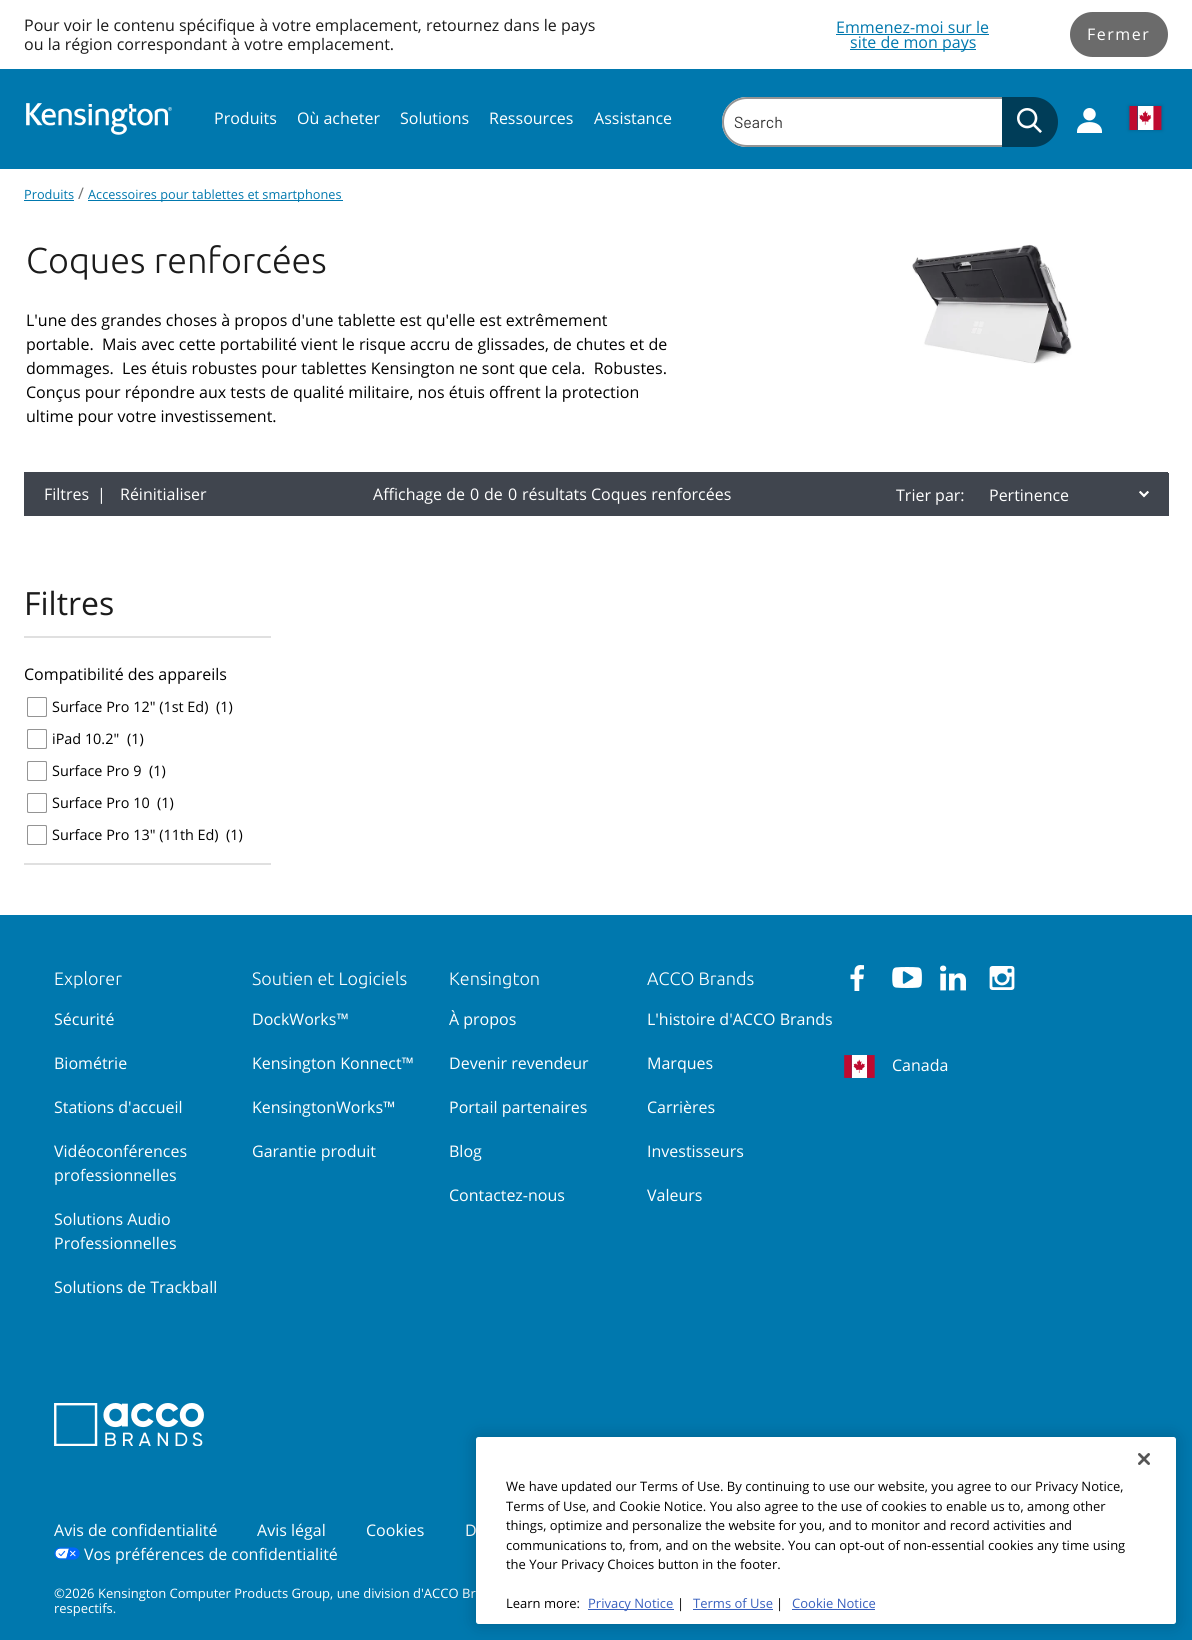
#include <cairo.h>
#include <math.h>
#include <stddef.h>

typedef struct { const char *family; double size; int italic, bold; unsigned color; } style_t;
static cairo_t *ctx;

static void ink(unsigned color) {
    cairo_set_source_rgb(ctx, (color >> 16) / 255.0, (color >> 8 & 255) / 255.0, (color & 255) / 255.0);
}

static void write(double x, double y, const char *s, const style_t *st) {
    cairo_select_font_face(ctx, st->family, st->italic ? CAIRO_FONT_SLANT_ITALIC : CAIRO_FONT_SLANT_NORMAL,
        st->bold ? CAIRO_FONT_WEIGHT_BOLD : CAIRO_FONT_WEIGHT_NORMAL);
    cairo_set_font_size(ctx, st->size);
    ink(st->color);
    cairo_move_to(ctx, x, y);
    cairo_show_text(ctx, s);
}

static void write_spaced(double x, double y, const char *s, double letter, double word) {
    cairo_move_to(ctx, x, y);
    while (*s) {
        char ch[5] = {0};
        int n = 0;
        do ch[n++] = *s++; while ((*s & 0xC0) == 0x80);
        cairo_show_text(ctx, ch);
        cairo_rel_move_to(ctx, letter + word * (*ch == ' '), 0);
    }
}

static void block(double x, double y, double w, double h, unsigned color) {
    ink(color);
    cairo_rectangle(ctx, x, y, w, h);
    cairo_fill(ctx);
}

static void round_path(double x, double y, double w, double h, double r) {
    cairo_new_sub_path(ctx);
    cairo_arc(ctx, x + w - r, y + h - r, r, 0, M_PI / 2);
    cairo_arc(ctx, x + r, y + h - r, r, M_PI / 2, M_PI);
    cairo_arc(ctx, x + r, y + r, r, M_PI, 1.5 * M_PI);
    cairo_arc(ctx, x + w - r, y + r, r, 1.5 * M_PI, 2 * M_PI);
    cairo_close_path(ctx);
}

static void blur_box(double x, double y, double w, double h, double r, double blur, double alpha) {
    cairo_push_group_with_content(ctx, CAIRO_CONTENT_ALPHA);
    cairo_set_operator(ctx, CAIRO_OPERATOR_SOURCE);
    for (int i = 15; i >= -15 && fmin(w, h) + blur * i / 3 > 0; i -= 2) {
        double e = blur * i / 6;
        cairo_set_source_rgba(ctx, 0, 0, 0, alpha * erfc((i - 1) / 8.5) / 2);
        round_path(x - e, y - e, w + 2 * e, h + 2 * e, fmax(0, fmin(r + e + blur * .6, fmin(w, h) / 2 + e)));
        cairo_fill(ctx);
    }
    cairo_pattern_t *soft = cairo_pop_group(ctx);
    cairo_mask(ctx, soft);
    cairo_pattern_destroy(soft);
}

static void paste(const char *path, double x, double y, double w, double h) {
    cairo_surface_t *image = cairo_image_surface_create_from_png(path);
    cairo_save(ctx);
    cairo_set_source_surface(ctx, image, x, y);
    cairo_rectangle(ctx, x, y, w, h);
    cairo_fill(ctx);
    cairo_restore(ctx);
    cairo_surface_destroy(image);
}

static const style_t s1 = {"Open Sans", 16, 0, 0, 0x1b1b1b};
static const style_t s2 = {"Open Sans", 16, 0, 0, 0x0078ae};
static const style_t s3 = {"Open Sans", 16, 0, 0, 0xffffff};
static const style_t s4 = {"Barlow", 16, 0, 0, 0x333333};
static const style_t s5 = {"Open Sans", 12.75, 0, 0, 0x0078ae};
static const style_t s6 = {"Open Sans", 16, 0, 0, 0x757575};
static const style_t s7 = {"Ubuntu Light", 36, 0, 0, 0x1b1b1b};
static const style_t s8 = {"Open Sans", 16, 0, 0, 0x000000};
static const style_t s9 = {"Open Sans", 32, 0, 0, 0x1b1b1b};
static const style_t s10 = {"Open Sans", 14.4, 0, 0, 0x000000};
static const style_t s11 = {"Ubuntu Light", 18, 0, 0, 0xffffff};
static const style_t s12 = {"Open Sans", 13, 0, 0, 0xffffff};
static const style_t s13 = {"Open Sans", 13, 0, 0, 0x000000};
static const style_t s14 = {"Open Sans", 13, 0, 0, 0x3860be};

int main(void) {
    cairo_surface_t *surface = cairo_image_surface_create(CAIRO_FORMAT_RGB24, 1192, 1640);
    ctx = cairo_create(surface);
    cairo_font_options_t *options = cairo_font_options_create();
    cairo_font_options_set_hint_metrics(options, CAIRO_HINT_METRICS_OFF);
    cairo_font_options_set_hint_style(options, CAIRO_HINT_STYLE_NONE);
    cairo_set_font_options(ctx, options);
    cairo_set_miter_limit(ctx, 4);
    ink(0xffffff);
    cairo_paint(ctx);
    write(24, 31, "Pour voir le contenu spécifique à votre emplacement, retournez dans le pays", &s1);
    write(24, 50, "ou la région correspondant à votre emplacement.", &s1);
    write(836, 33, "Emmenez-moi sur le", &s2);
    block(836, 34, 153, 1, 0x0078ae);
    block(850, 49, 126, 1, 0x0078ae);
    write(850, 48, "site de mon pays", &s2);
    ink(0x6b6b6b);
    round_path(1070, 12, 98, 45, 22.5);
    cairo_fill(ctx);
    ink(0xffffff);
    write_spaced(1087, 40, "Fermer", 1.5, 0);
    block(0, 69, 1192, 100, 0x0078ae);
    paste("pic1.png", 26, 103, 146, 32);
    write(214, 124, "Produits", &s3);
    write(297, 124, "Où acheter", &s3);
    write(400, 124, "Solutions", &s3);
    write(489, 124, "Ressources", &s3);
    write(594, 124, "Assistance", &s3);
    cairo_new_path(ctx);
    cairo_move_to(ctx, 747, 97);
    cairo_line_to(ctx, 1002, 97);
    cairo_line_to(ctx, 1002, 147);
    cairo_line_to(ctx, 747, 147);
    cairo_curve_to(ctx, 733, 147, 722, 136, 722, 122);
    cairo_curve_to(ctx, 722, 108, 733, 97, 747, 97);
    cairo_close_path(ctx);
    cairo_fill(ctx);
    ink(0x949494);
    cairo_set_fill_rule(ctx, CAIRO_FILL_RULE_EVEN_ODD);
    cairo_new_path(ctx);
    cairo_move_to(ctx, 747, 97);
    cairo_line_to(ctx, 1002, 97);
    cairo_line_to(ctx, 1002, 147);
    cairo_line_to(ctx, 747, 147);
    cairo_curve_to(ctx, 733, 147, 722, 136, 722, 122);
    cairo_curve_to(ctx, 722, 108, 733, 97, 747, 97);
    cairo_close_path(ctx);
    cairo_move_to(ctx, 747, 99);
    cairo_line_to(ctx, 1002, 99);
    cairo_line_to(ctx, 1002, 145);
    cairo_line_to(ctx, 747, 145);
    cairo_curve_to(ctx, 734, 145, 724, 135, 724, 122);
    cairo_curve_to(ctx, 724, 109, 734, 99, 747, 99);
    cairo_close_path(ctx);
    cairo_fill(ctx);
    write(734, 128, "Search", &s4);
    ink(0x003d58);
    cairo_new_path(ctx);
    cairo_move_to(ctx, 1002, 97);
    cairo_line_to(ctx, 1033, 97);
    cairo_curve_to(ctx, 1047, 97, 1058, 108, 1058, 122);
    cairo_curve_to(ctx, 1058, 136, 1047, 147, 1033, 147);
    cairo_line_to(ctx, 1002, 147);
    cairo_close_path(ctx);
    cairo_fill(ctx);
    paste("pic2.png", 1017, 108, 25, 25);
    paste("pic3.png", 1077, 108, 25, 25);
    ink(0x000000);
    blur_box(1129, 106, 33, 24, 0, 2, 0.18);
    paste("pic4.png", 1129, 106, 33, 24);
    write(24, 199, "Produits", &s5);
    block(24, 200, 50, 1, 0x0078ae);
    write(78, 199, "/", &s6);
    block(88, 200, 255, 1, 0x0078ae);
    write(88, 199, "Accessoires pour tablettes et smartphones", &s5);
    write(26, 273, "Coques renforcées", &s7);
    write(26, 326, "L'une des grandes choses à propos d'une tablette est qu'elle est extrêmement", &s8);
    write(26, 350, "portable.  Mais avec cette portabilité vient le risque accru de glissades, de chutes et de", &s8);
    write(26, 374, "dommages.  Les étuis robustes pour tablettes Kensington ne sont que cela.  Robustes.", &s8);
    write(26, 398, "Conçus pour répondre aux tests de qualité militaire, nos étuis offrent la protection", &s8);
    write(26, 422, "ultime pour votre investissement.", &s8);
    paste("pic5.png", 912, 244, 160, 120);
    block(24, 472, 1144, 44, 0x40454e);
    write(44, 500, "Filtres", &s3);
    write(97, 500, "|", &s3);
    write(120, 500, "Réinitialiser", &s3);
    write(373, 500, "Affichage de", &s3);
    write(470, 500, "0", &s3);
    write(484, 500, "de", &s3);
    write(508, 500, "0", &s3);
    write(522, 500, "résultats Coques renforcées", &s3);
    write(896, 501, "Trier par:", &s3);
    block(1168, 473, 1, 43, 0x40454e);
    write(989, 501, "Pertinence", &s3);
    paste("pic6.png", 1139, 491, 10, 7);
    block(24, 636, 247, 2, 0xe0e0e0);
    write(24, 615, "Filtres", &s9);
    block(24, 863, 247, 2, 0xe0e0e0);
    write(24, 680, "Compatibilité des appareils", &s8);
    round_path(27.5, 697.5, 19, 19, 1.5);
    ink(0x767676);
    cairo_set_line_width(ctx, 1);
    cairo_stroke(ctx);
    ink(0xffffff);
    round_path(27.5, 697.5, 19, 19, 1.5);
    cairo_fill_preserve(ctx);
    ink(0x949494);
    cairo_stroke(ctx);
    write(52, 712, "Surface Pro 12\" (1st Ed)", &s10);
    write(216, 712, "(1)", &s10);
    round_path(27.5, 729.5, 19, 19, 1.5);
    ink(0x767676);
    cairo_stroke(ctx);
    ink(0xffffff);
    round_path(27.5, 729.5, 19, 19, 1.5);
    cairo_fill_preserve(ctx);
    ink(0x949494);
    cairo_stroke(ctx);
    write(52, 744, "iPad 10.2\"", &s10);
    write(127, 744, "(1)", &s10);
    round_path(27.5, 761.5, 19, 19, 1.5);
    ink(0x767676);
    cairo_stroke(ctx);
    ink(0xffffff);
    round_path(27.5, 761.5, 19, 19, 1.5);
    cairo_fill_preserve(ctx);
    ink(0x949494);
    cairo_stroke(ctx);
    write(52, 776, "Surface Pro 9", &s10);
    write(149, 776, "(1)", &s10);
    round_path(27.5, 793.5, 19, 19, 1.5);
    ink(0x767676);
    cairo_stroke(ctx);
    ink(0xffffff);
    round_path(27.5, 793.5, 19, 19, 1.5);
    cairo_fill_preserve(ctx);
    ink(0x949494);
    cairo_stroke(ctx);
    write(52, 808, "Surface Pro 10", &s10);
    write(157, 808, "(1)", &s10);
    round_path(27.5, 825.5, 19, 19, 1.5);
    ink(0x767676);
    cairo_stroke(ctx);
    ink(0xffffff);
    round_path(27.5, 825.5, 19, 19, 1.5);
    cairo_fill_preserve(ctx);
    ink(0x949494);
    cairo_stroke(ctx);
    write(52, 840, "Surface Pro 13\" (11th Ed)", &s10);
    write(226, 840, "(1)", &s10);
    block(0, 915, 1192, 725, 0x0078ae);
    write(54, 985, "Explorer", &s11);
    write(54, 1025, "Sécurité", &s3);
    write(54, 1069, "Biométrie", &s3);
    write(54, 1113, "Stations d'accueil", &s3);
    write(54, 1157, "Vidéoconférences", &s3);
    write(54, 1181, "professionnelles", &s3);
    write(54, 1225, "Solutions Audio", &s3);
    write(54, 1249, "Professionnelles", &s3);
    write(54, 1293, "Solutions de Trackball", &s3);
    write(252, 985, "Soutien et Logiciels", &s11);
    write(252, 1025, "DockWorks™", &s3);
    write(252, 1069, "Kensington Konnect™", &s3);
    write(252, 1113, "KensingtonWorks™", &s3);
    write(252, 1157, "Garantie produit", &s3);
    write(449, 985, "Kensington", &s11);
    write(449, 1025, "À propos", &s3);
    write(449, 1069, "Devenir revendeur", &s3);
    write(449, 1113, "Portail partenaires", &s3);
    write(449, 1157, "Blog", &s3);
    write(449, 1201, "Contactez-nous", &s3);
    write(647, 985, "ACCO Brands", &s11);
    write(647, 1025, "L'histoire d'ACCO Brands", &s3);
    write(647, 1069, "Marques", &s3);
    write(647, 1113, "Carrières", &s3);
    write(647, 1157, "Investisseurs", &s3);
    write(647, 1201, "Valeurs", &s3);
    paste("pic7.png", 850, 965, 14, 26);
    paste("pic8.png", 892, 967, 30, 21);
    paste("pic9.png", 940, 965, 26, 26);
    paste("pic10.png", 989, 966, 26, 24);
    paste("pic11.png", 844, 1055, 31, 23);
    write(892, 1071, "Canada", &s3);
    paste("pic12.png", 54, 1403, 150, 43);
    write(54, 1536, "Avis de confidentialité", &s3);
    write(257, 1536, "Avis légal", &s3);
    write(366, 1536, "Cookies", &s3);
    write(465, 1536, "D", &s3);
    paste("pic13.png", 54, 1547, 26, 13);
    write(84, 1560, "Vos préférences de confidentialité", &s3);
    write(54, 1598, "©2026 Kensington Computer Products Group, une division d'ACCO Br", &s12);
    write(54, 1613, "respectifs.", &s12);
    ink(0x000000);
    blur_box(476, 1437, 700, 187, 2.5, 9, 0.2);
    ink(0xffffff);
    round_path(476, 1437, 700, 187, 2.5);
    cairo_fill(ctx);
    paste("pic14.png", 1138, 1453, 12, 12);
    write(506, 1491, "We have updated our Terms of Use. By continuing to use our website, you agree to our Privacy Notice,", &s13);
    write(506, 1511, "Terms of Use, and Cookie Notice. You also agree to the use of cookies to enable us to, among other", &s13);
    write(506, 1530, "things, optimize and personalize the website for you, and to monitor and record activities and", &s13);
    write(506, 1550, "communications to, from, and on the website. You can opt-out of non-essential cookies any time using", &s13);
    write(506, 1569, "the Your Privacy Choices button in the footer.", &s13);
    write(506, 1608, "Learn more:", &s13);
    block(588, 1609, 86, 1, 0x3860be);
    write(588, 1608, "Privacy Notice", &s14);
    write(677, 1608, "|", &s13);
    write(693, 1608, "Terms of Use", &s14);
    block(693, 1609, 80, 1, 0x3860be);
    write(776, 1608, "|", &s13);
    write(792, 1608, "Cookie Notice", &s14);
    block(792, 1609, 83, 1, 0x3860be);
    cairo_surface_write_to_png(surface, "screenshot.png");
    cairo_font_options_destroy(options);
    cairo_destroy(ctx);
    cairo_surface_destroy(surface);
    return 0;
}
